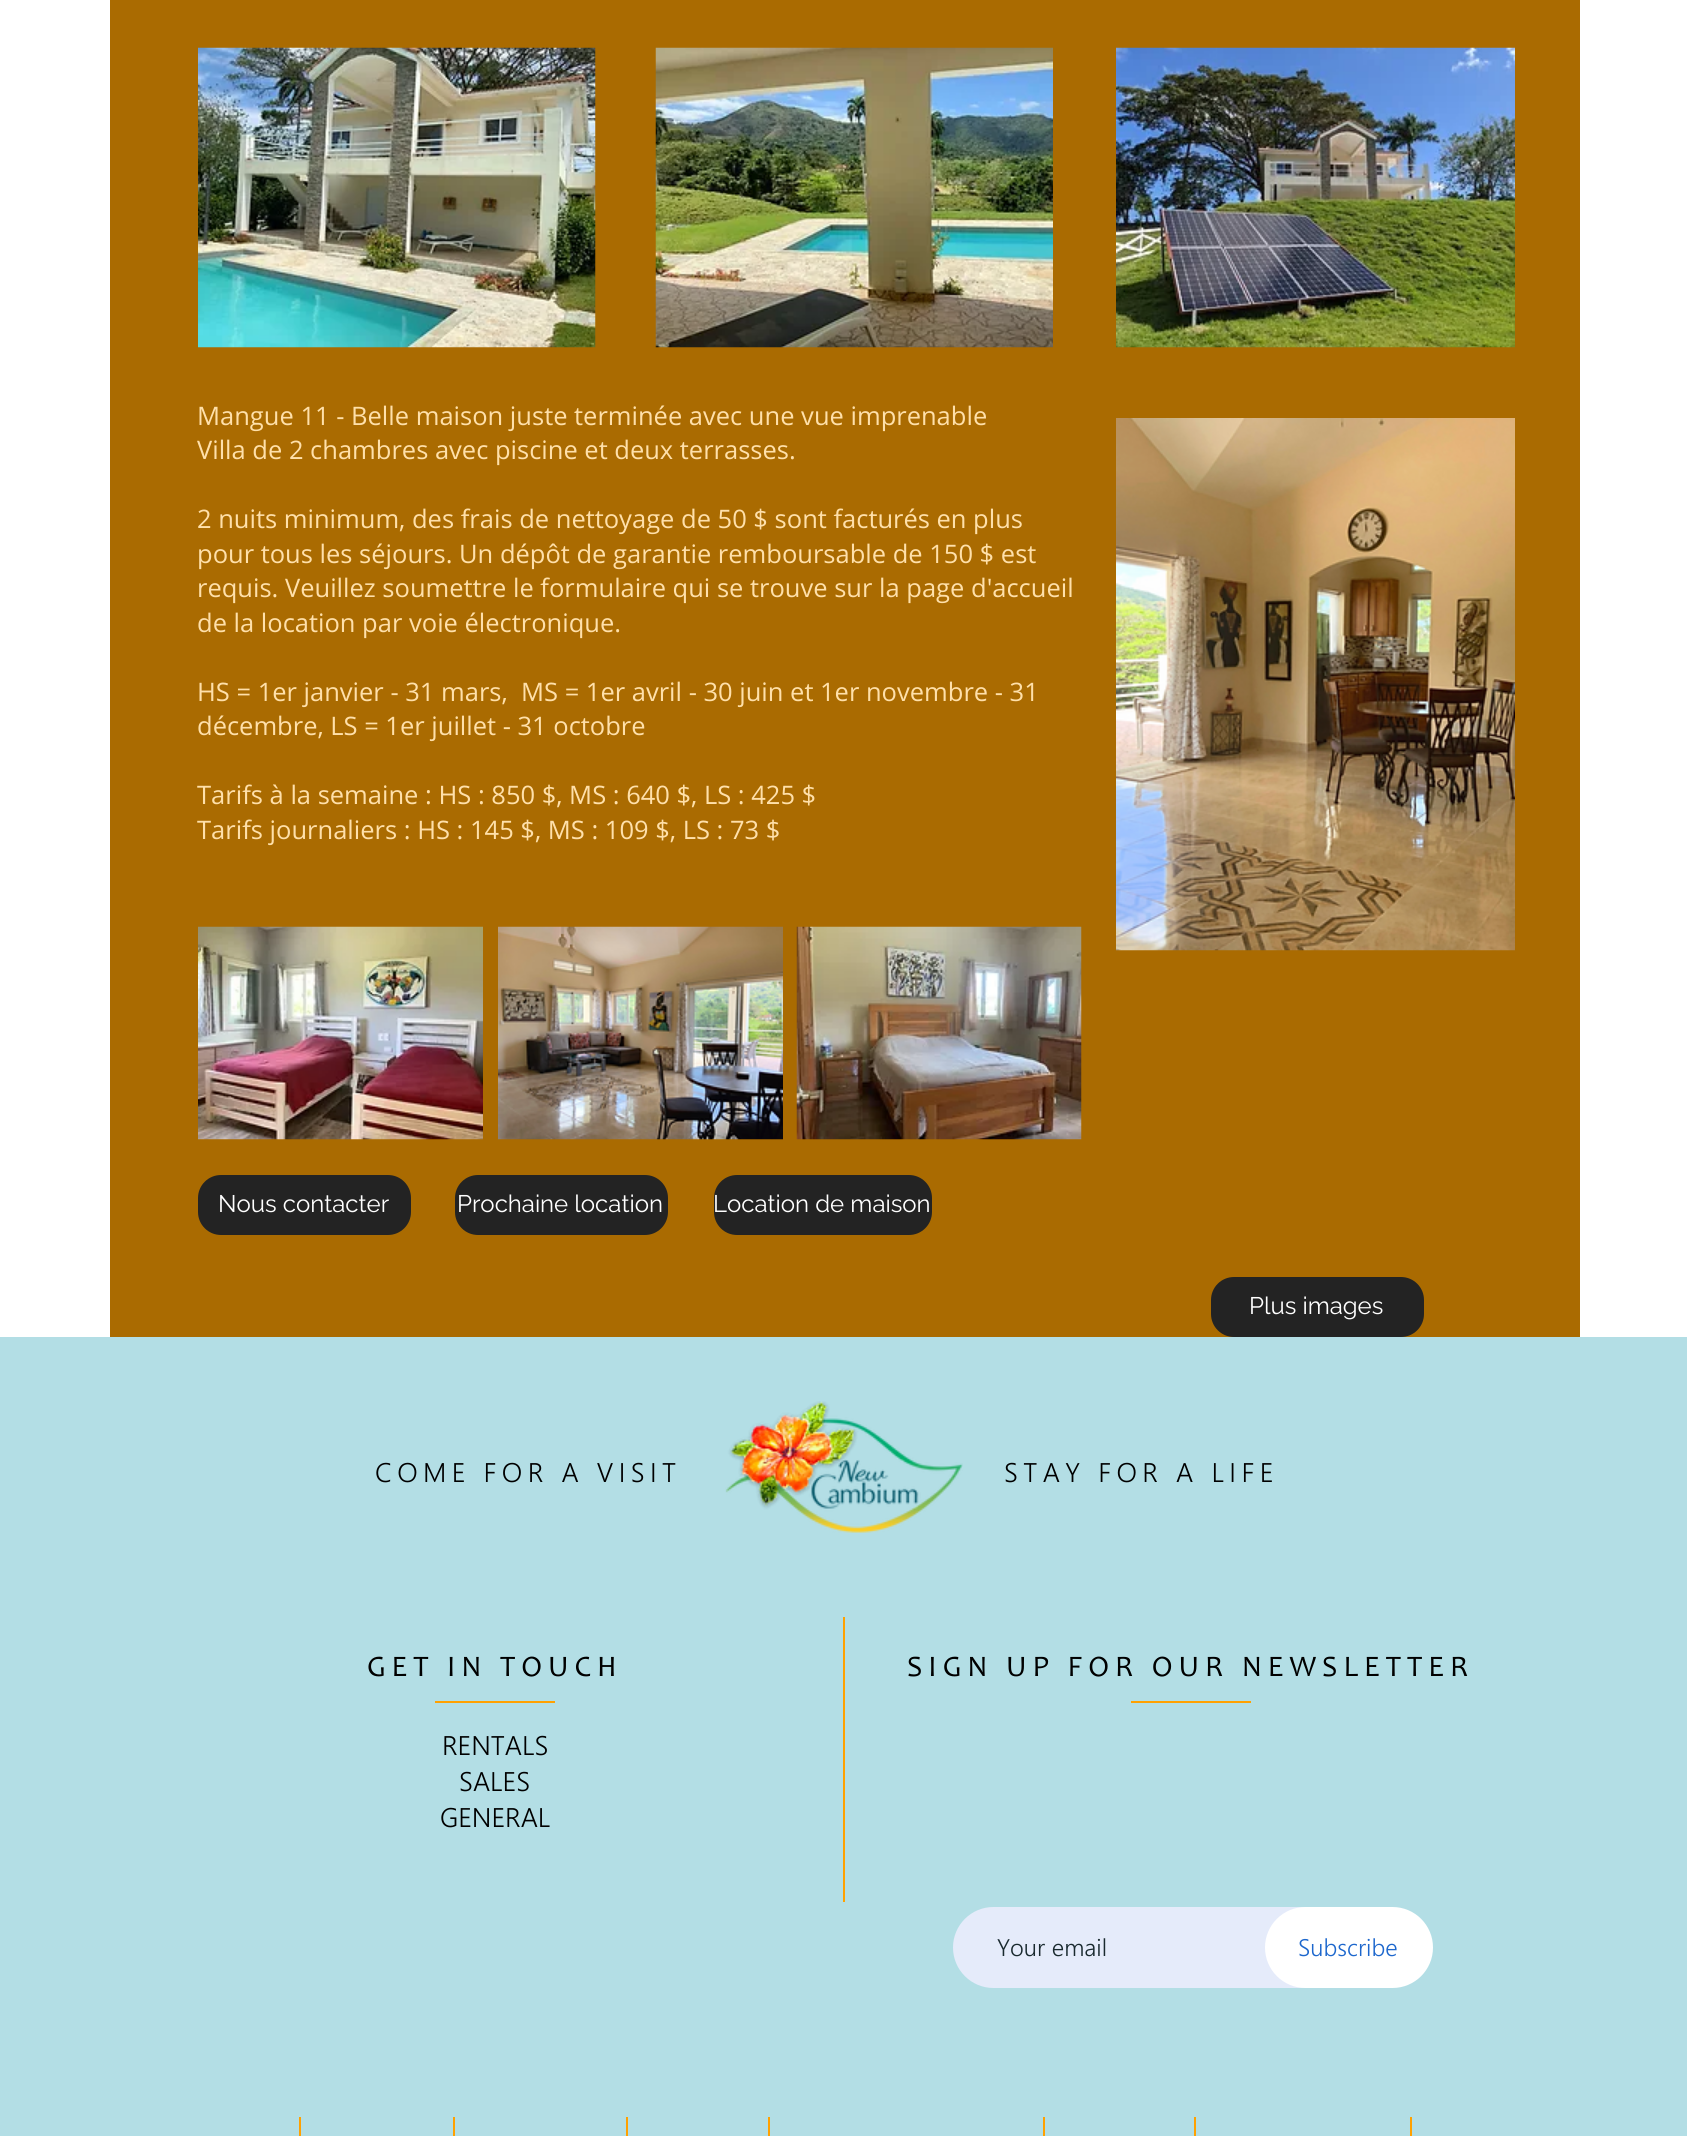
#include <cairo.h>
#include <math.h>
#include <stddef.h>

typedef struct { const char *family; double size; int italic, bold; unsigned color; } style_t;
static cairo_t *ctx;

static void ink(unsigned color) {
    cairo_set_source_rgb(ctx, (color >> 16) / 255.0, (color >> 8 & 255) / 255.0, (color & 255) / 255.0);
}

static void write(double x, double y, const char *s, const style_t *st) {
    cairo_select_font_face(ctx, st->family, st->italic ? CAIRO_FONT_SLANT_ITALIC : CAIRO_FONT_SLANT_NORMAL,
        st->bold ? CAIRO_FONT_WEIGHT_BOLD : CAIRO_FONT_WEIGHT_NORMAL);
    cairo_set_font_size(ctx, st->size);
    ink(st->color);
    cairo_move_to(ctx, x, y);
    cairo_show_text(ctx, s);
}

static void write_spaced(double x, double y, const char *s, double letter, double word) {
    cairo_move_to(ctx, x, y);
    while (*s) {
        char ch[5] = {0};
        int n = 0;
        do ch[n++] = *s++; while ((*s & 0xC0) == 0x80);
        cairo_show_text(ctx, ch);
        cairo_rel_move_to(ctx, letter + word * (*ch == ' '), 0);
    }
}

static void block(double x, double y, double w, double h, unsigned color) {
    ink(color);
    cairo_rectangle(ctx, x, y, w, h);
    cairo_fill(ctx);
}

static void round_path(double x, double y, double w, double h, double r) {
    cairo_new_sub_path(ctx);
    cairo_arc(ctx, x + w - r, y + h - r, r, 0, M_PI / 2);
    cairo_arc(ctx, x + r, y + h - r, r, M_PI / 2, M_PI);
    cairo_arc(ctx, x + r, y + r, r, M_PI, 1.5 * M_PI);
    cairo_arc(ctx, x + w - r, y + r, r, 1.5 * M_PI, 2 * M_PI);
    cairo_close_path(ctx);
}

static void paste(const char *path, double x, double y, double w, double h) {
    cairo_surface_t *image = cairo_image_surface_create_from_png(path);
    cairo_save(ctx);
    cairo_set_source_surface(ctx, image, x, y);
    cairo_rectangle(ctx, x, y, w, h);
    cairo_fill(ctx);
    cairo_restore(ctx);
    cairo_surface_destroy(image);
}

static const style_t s1 = {"Open Sans", 25.5, 0, 0, 0xffe0aa};
static const style_t s2 = {"Raleway", 24, 0, 0, 0xffffff};
static const style_t s3 = {"Segoe UI Light", 27, 0, 0, 0x000000};
static const style_t s4 = {"Segoe UI Light", 24, 0, 0, 0x19292e};
static const style_t s5 = {"Segoe UI Light", 24, 0, 0, 0x1d67cd};

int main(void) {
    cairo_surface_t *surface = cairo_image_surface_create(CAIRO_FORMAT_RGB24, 1687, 2136);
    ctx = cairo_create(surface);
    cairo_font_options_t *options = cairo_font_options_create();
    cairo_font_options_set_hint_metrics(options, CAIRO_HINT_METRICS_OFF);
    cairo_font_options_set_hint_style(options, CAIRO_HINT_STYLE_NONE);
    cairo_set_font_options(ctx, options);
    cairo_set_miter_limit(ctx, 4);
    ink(0xffffff);
    cairo_paint(ctx);
    block(110, 0, 1470, 1337, 0xaa6b01);
    paste("pic1.png", 198, 47, 398, 301);
    paste("pic2.png", 655, 47, 398, 301);
    paste("pic3.png", 1116, 47, 399, 301);
    write(197, 425, "Mangue 11 - Belle maison juste terminée avec une vue imprenable", &s1);
    write(197, 459, "Villa de 2 chambres avec piscine et deux terrasses.", &s1);
    write(197, 528, "2 nuits minimum, des frais de nettoyage de 50 $ sont facturés en plus", &s1);
    write(197, 563, "pour tous les séjours. Un dépôt de garantie remboursable de 150 $ est", &s1);
    write(197, 597, "requis. Veuillez soumettre le formulaire qui se trouve sur la page d'accueil", &s1);
    write(197, 632, "de la location par voie électronique.", &s1);
    write(197, 701, "HS = 1er janvier - 31 mars,  MS = 1er avril - 30 juin et 1er novembre - 31", &s1);
    write(197, 735, "décembre, LS = 1er juillet - 31 octobre", &s1);
    write(197, 804, "Tarifs à la semaine : HS : 850 $, MS : 640 $, LS : 425 $", &s1);
    write(197, 839, "Tarifs journaliers : HS : 145 $, MS : 109 $, LS : 73 $", &s1);
    paste("pic4.png", 1116, 418, 399, 533);
    paste("pic5.png", 198, 926, 285, 214);
    paste("pic6.png", 498, 926, 285, 214);
    paste("pic7.png", 796, 926, 286, 214);
    ink(0x232323);
    round_path(198, 1175, 213, 60, 23);
    cairo_fill(ctx);
    write(218, 1212, "Nous contacter", &s2);
    ink(0x232323);
    round_path(455, 1175, 213, 60, 23);
    cairo_fill(ctx);
    write(457, 1212, "Prochaine location", &s2);
    ink(0x232323);
    round_path(714, 1175, 218, 60, 23);
    cairo_fill(ctx);
    write(713, 1212, "Location de maison", &s2);
    ink(0x232323);
    round_path(1211, 1277, 213, 60, 23);
    cairo_fill(ctx);
    write(1249, 1314, "Plus images", &s2);
    block(0, 1337, 1687, 799, 0xb3dee5);
    cairo_select_font_face(ctx, "Segoe UI Light", CAIRO_FONT_SLANT_NORMAL, CAIRO_FONT_WEIGHT_NORMAL);
    cairo_set_font_size(ctx, 27);
    ink(0x000000);
    write_spaced(375, 1482, "COME FOR A VISIT", 5.4, 0);
    paste("pic8.png", 725, 1401, 238, 132);
    write_spaced(1004, 1482, "STAY FOR A LIFE", 5.4, 0);
    cairo_select_font_face(ctx, "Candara", CAIRO_FONT_SLANT_NORMAL, CAIRO_FONT_WEIGHT_NORMAL);
    cairo_set_font_size(ctx, 30);
    write_spaced(367, 1676, "GET IN TOUCH", 6, 0);
    block(435, 1701, 120, 2, 0xffa101);
    write(442, 1755, "RENTALS", &s3);
    write(459, 1791, "SALES", &s3);
    write(440, 1827, "GENERAL", &s3);
    block(843, 1617, 2, 285, 0xffa101);
    cairo_select_font_face(ctx, "Candara", CAIRO_FONT_SLANT_NORMAL, CAIRO_FONT_WEIGHT_NORMAL);
    cairo_set_font_size(ctx, 30);
    ink(0x000000);
    write_spaced(907, 1676, "SIGN UP FOR OUR NEWSLETTER", 6, 0);
    block(1131, 1701, 120, 2, 0xffa101);
    ink(0xe5ebfa);
    round_path(953, 1907, 406, 81, 40.5);
    cairo_fill(ctx);
    write(997, 1956, "Your email", &s4);
    ink(0xffffff);
    round_path(1265, 1907, 168, 81, 40.5);
    cairo_fill(ctx);
    write(1298, 1956, "Subscribe", &s5);
    block(299, 2117, 2, 19, 0xffa101);
    block(453, 2117, 2, 19, 0xffa101);
    block(626, 2117, 2, 19, 0xffa101);
    block(768, 2117, 2, 19, 0xffa101);
    block(1043, 2117, 2, 19, 0xffa101);
    block(1194, 2117, 2, 19, 0xffa101);
    block(1410, 2117, 2, 19, 0xffa101);
    cairo_surface_write_to_png(surface, "screenshot.png");
    cairo_font_options_destroy(options);
    cairo_destroy(ctx);
    cairo_surface_destroy(surface);
    return 0;
}
